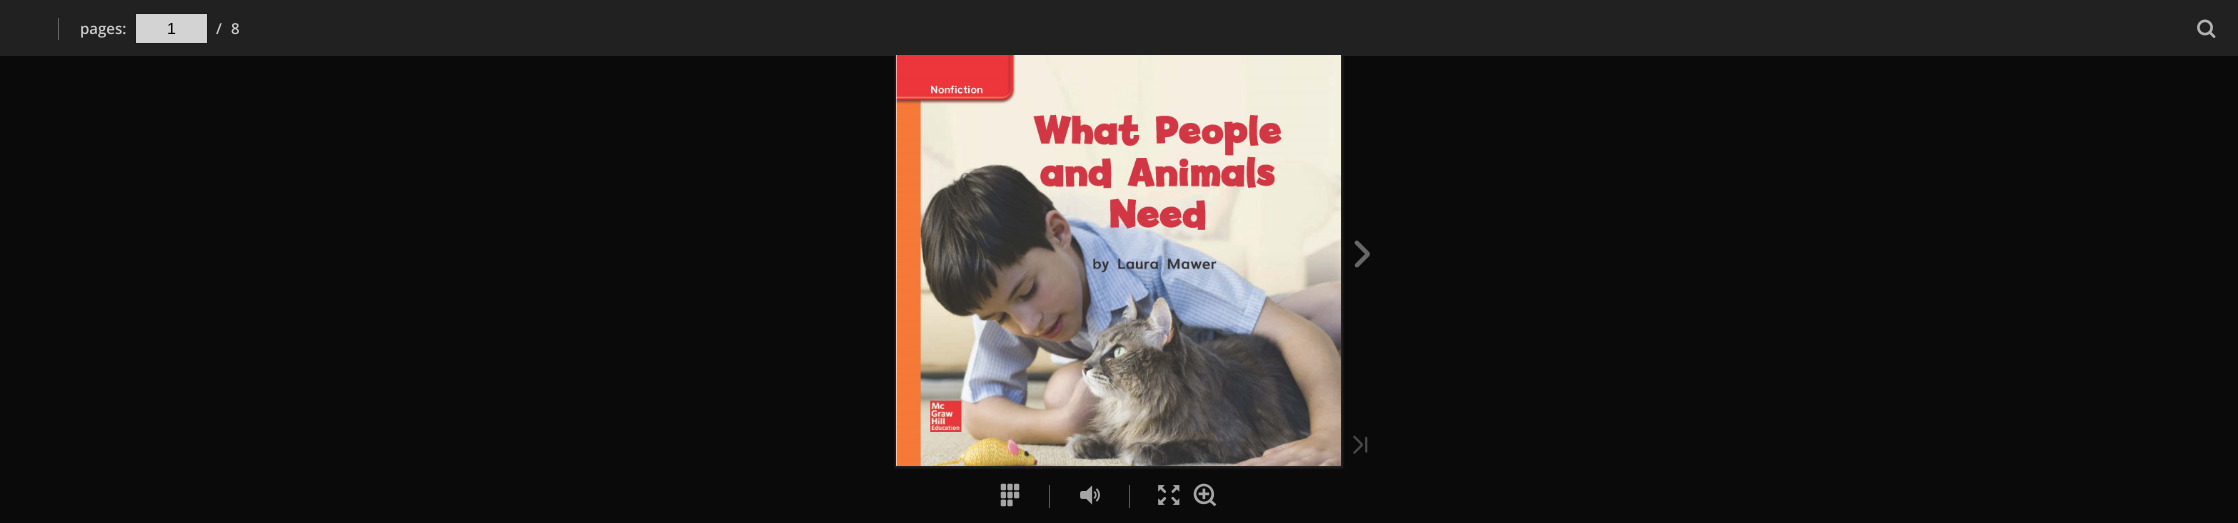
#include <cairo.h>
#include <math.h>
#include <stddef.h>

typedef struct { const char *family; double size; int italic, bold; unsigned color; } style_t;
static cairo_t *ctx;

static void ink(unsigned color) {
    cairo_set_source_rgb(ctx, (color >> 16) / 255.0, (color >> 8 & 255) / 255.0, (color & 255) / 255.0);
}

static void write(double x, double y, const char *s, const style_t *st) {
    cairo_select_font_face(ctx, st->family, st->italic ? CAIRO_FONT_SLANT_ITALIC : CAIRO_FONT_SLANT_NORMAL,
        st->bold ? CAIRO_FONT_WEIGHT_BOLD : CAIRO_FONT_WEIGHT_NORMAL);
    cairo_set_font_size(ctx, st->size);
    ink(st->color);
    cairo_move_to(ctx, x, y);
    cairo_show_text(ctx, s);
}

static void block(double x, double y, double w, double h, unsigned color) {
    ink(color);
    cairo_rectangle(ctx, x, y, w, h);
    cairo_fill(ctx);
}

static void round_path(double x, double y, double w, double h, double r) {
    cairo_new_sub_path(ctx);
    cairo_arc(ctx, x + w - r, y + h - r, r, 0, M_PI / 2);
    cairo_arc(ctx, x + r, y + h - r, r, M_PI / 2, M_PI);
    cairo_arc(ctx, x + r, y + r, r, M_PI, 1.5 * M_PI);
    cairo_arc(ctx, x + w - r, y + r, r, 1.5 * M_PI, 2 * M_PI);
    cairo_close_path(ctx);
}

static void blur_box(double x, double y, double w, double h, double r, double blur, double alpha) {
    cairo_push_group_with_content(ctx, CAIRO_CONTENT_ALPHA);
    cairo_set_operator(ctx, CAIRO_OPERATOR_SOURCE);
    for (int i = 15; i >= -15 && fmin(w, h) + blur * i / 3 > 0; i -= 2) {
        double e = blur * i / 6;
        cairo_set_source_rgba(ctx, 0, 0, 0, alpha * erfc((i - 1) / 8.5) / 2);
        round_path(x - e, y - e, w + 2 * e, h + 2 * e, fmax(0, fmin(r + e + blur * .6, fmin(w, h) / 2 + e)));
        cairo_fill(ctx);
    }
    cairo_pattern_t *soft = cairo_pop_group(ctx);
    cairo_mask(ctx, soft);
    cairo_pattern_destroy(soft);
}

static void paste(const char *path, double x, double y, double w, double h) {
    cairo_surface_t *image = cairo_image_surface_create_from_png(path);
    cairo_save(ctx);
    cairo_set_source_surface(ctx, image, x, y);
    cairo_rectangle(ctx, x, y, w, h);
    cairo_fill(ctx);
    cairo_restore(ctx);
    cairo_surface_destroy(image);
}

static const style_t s1 = {"Open Sans SemiBold", 15, 0, 0, 0xcbcbcb};
static const style_t s2 = {"Liberation Sans", 16, 0, 0, 0x000000};

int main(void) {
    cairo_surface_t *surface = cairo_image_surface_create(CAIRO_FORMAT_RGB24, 2238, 523);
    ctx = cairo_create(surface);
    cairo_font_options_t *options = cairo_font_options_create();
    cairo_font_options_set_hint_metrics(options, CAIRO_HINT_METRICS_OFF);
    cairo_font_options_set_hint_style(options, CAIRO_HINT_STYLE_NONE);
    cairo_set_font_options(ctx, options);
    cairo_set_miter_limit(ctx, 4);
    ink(0x0a0a0a);
    cairo_paint(ctx);
    ink(0x6e6e6e);
    blur_box(895, 54, 448, 414, 0, 1, 0.25);
    block(0, 0, 2238, 56, 0x212121);
    block(58, 18, 1, 22, 0x636363);
    write(80, 34, "pages:", &s1);
    ink(0xd3d3d3);
    cairo_rectangle(ctx, 135.5, 13.5, 72, 30);
    cairo_fill_preserve(ctx);
    ink(0x1a1a1a);
    cairo_set_line_width(ctx, 1);
    cairo_stroke(ctx);
    write(167, 34, "1", &s2);
    write(216, 34, "/", &s1);
    write(231, 34, "8", &s1);
    paste("pic1.png", 2197, 19, 19, 19);
    block(896, 55, 1, 411, 0xffffff);
    paste("pic2.png", 896, 55, 445, 411);
    paste("pic3.png", 1354, 240, 16, 28);
    paste("pic4.png", 1353, 435, 15, 19);
    paste("pic5.png", 1000, 483, 20, 24);
    block(1049, 485, 1, 23, 0x585858);
    paste("pic6.png", 1080, 485, 20, 20);
    block(1129, 485, 1, 23, 0x585858);
    paste("pic7.png", 1158, 485, 22, 20);
    paste("pic8.png", 1193, 483, 24, 24);
    cairo_surface_write_to_png(surface, "screenshot.png");
    cairo_font_options_destroy(options);
    cairo_destroy(ctx);
    cairo_surface_destroy(surface);
    return 0;
}
